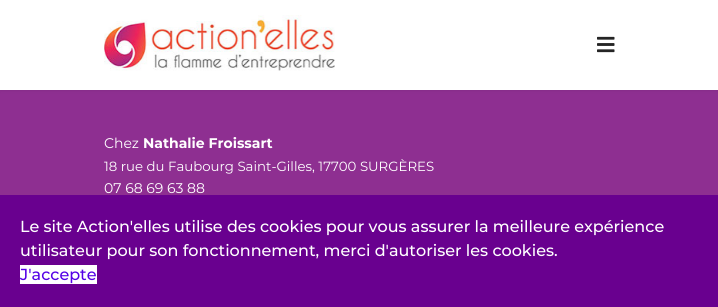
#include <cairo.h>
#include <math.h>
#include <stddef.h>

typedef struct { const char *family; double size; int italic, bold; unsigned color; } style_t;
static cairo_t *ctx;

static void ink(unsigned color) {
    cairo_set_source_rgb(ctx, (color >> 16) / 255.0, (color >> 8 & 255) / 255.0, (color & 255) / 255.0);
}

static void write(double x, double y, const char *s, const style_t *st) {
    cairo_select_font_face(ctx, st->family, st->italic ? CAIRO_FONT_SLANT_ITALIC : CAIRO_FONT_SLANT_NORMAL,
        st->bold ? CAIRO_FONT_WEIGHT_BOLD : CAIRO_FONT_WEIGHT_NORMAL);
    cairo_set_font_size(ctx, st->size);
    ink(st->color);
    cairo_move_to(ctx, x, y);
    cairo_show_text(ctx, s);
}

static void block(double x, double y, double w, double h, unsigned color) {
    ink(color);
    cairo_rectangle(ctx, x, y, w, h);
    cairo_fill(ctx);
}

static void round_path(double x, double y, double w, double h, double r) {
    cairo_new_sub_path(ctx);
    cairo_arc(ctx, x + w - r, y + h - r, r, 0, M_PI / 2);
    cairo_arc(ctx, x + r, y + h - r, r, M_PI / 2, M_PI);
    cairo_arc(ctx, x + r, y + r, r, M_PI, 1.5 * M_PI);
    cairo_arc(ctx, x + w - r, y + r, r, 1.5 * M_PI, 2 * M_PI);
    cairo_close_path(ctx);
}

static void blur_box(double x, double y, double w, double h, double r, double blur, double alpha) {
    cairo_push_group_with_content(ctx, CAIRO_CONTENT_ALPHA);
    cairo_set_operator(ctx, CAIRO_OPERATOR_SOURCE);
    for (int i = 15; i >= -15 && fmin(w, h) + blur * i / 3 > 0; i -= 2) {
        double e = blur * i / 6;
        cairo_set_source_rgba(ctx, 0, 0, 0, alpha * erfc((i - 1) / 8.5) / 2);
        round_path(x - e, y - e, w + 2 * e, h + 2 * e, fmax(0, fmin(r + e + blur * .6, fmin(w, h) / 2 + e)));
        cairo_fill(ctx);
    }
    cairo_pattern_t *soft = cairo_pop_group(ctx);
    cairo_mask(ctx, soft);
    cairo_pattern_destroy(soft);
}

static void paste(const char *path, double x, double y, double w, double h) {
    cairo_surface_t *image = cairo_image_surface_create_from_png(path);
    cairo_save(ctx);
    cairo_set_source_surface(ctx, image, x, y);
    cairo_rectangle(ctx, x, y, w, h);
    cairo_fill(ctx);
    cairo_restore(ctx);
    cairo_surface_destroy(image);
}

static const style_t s1 = {"Montserrat", 14, 0, 0, 0xffffff};
static const style_t s2 = {"Montserrat", 14, 0, 1, 0xffffff};
static const style_t s3 = {"Montserrat", 13.3, 0, 0, 0xffffff};
static const style_t s4 = {"Montserrat Medium", 16, 0, 0, 0xffffff};
static const style_t s5 = {"Montserrat Medium", 16, 0, 0, 0x5400e6};

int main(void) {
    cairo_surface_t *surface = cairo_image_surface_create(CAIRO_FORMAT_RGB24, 718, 307);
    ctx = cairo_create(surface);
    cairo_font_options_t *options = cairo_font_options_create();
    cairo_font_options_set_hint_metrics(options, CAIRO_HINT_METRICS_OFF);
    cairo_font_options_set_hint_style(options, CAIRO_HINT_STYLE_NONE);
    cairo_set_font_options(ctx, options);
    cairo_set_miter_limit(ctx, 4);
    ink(0x8e2f91);
    cairo_paint(ctx);
    ink(0x000000);
    blur_box(0, 0, 718, 90, 0, 2, 0.1);
    block(0, 0, 718, 90, 0xffffff);
    paste("pic1.png", 104, 15, 231, 56);
    paste("pic2.png", 597, 36, 18, 17);
    write(104, 148, "Chez", &s1);
    write(143, 148, "Nathalie Froissart", &s2);
    write(104, 171, "18 rue du Faubourg Saint-Gilles, 17700 SURGÈRES", &s3);
    write(104, 193, "07 68 69 63 88", &s1);
    block(0, 195, 718, 112, 0x69008f);
    write(20, 232, "Le site Action'elles utilise des cookies pour vous assurer la meilleure expérience", &s4);
    write(20, 256, "utilisateur pour son fonctionnement, merci d'autoriser les cookies.", &s4);
    block(20, 265, 77, 19, 0xffffff);
    write(20, 280, "J'accepte", &s5);
    cairo_surface_write_to_png(surface, "screenshot.png");
    cairo_font_options_destroy(options);
    cairo_destroy(ctx);
    cairo_surface_destroy(surface);
    return 0;
}
